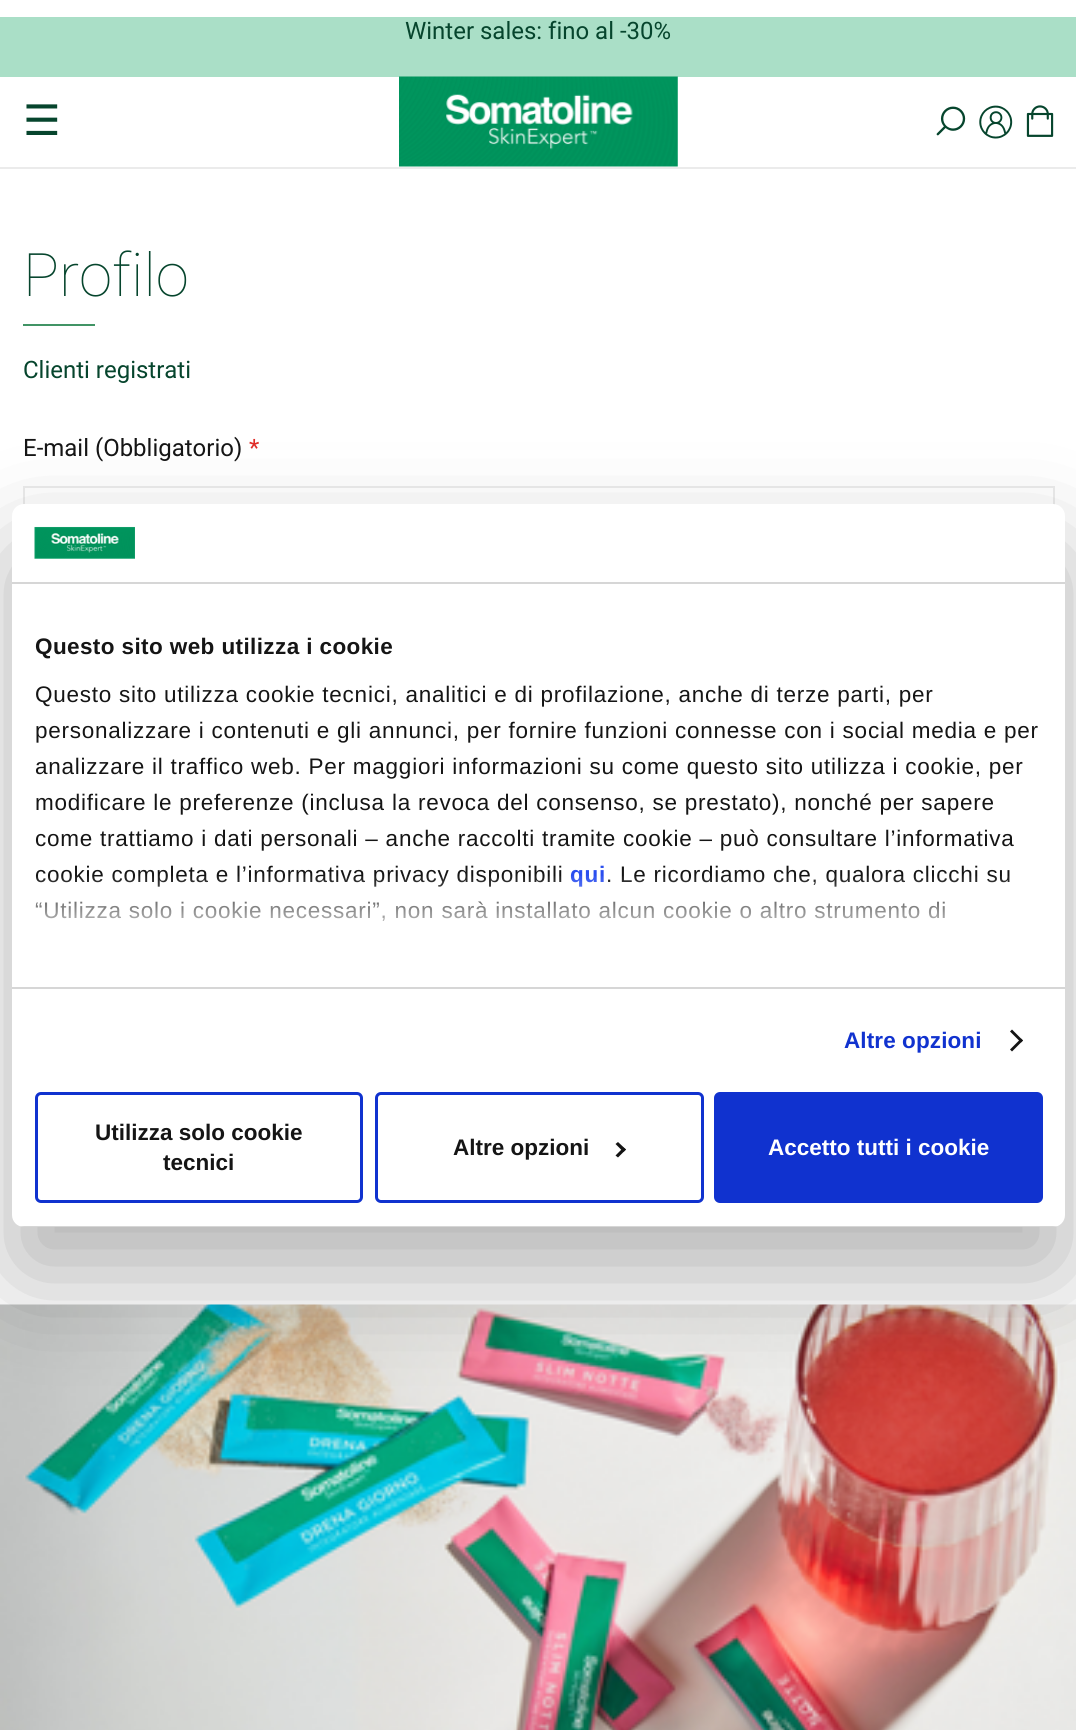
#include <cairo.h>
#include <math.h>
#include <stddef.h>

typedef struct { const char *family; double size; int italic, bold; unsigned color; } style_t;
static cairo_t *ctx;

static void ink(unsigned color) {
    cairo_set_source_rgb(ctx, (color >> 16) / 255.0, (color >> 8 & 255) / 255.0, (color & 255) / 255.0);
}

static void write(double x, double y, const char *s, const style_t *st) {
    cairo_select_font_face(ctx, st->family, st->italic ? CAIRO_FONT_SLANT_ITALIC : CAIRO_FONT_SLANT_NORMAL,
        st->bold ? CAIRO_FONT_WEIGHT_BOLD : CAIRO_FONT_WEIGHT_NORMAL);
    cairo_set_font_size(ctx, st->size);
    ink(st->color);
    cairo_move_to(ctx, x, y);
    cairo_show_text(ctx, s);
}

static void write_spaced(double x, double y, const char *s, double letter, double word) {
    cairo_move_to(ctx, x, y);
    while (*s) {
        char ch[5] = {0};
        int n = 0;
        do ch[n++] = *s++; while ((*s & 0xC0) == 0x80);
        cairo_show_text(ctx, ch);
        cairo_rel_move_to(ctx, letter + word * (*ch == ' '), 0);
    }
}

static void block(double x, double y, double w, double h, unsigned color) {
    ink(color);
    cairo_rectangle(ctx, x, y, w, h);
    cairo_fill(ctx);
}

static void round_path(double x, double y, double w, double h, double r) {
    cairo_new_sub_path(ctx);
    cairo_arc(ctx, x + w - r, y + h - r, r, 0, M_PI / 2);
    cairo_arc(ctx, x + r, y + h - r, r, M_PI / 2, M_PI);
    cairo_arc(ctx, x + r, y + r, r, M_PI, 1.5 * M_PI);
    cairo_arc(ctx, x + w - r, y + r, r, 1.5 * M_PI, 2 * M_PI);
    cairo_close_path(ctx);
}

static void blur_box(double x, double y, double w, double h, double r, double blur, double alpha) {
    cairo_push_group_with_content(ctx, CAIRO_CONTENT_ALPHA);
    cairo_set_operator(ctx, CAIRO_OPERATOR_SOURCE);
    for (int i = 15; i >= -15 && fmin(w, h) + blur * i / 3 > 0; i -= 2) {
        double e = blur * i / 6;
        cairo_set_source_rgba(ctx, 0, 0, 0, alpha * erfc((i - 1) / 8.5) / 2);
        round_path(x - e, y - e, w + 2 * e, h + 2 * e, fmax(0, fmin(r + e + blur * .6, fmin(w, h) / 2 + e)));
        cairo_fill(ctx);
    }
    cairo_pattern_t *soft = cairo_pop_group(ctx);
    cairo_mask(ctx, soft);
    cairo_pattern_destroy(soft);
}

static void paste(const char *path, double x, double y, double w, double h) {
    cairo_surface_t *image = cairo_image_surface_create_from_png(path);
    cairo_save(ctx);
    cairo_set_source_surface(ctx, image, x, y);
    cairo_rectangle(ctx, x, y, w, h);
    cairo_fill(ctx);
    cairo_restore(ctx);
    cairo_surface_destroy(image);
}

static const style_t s1 = {"Roboto", 24, 0, 0, 0x06452d};
static const style_t s2 = {"DejaVu Sans", 42, 0, 0, 0x06452d};
static const style_t s3 = {"Roboto Thin", 60, 0, 0, 0x06452d};
static const style_t s4 = {"Roboto", 24, 0, 0, 0x151515};
static const style_t s5 = {"Roboto", 24, 0, 0, 0xe02b27};
static const style_t s6 = {"Liberation Sans", 22.5, 0, 1, 0x151515};
static const style_t s7 = {"Liberation Sans", 22.5, 0, 1, 0xffffff};

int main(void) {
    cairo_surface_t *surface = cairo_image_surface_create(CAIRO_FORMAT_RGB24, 1076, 1730);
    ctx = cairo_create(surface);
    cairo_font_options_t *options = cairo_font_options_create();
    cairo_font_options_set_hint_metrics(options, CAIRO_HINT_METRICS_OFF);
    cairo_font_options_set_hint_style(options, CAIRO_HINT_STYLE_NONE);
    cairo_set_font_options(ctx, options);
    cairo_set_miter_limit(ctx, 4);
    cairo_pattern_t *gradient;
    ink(0xffffff);
    cairo_paint(ctx);
    block(0, 17, 1076, 60, 0xaadfc7);
    write(405, 39, "Winter sales: fino al -30%", &s1);
    write(23, 135, "☰", &s2);
    paste("pic1.png", 399, 76, 279, 91);
    paste("pic2.png", 936, 106, 30, 30);
    paste("pic3.png", 979, 105, 34, 34);
    paste("pic4.png", 1026, 105, 28, 32);
    block(0, 167, 1076, 2, 0xebebeb);
    write(23, 296, "Profilo", &s3);
    block(23, 324, 72, 2, 0x419465);
    write(23, 378, "Clienti registrati", &s1);
    write(23, 456, "E-mail (Obbligatorio)", &s4);
    write(249, 456, "*", &s5);
    cairo_rectangle(ctx, 24, 487, 1030, 61);
    ink(0xebebeb);
    cairo_stroke(ctx);
    paste("pic5.png", 0, 1304, 1076, 426);
    ink(0x000000);
    blur_box(12, 552, 1053, 723, 12, 51, 0.3);
    ink(0xffffff);
    round_path(12, 504, 1053, 723, 12);
    cairo_fill(ctx);
    block(12, 582, 1053, 2, 0xd6d6d6);
    paste("pic6.png", 34, 526, 101, 33);
    block(12, 987, 1053, 2, 0xd6d6d6);
    cairo_select_font_face(ctx, "Liberation Sans", CAIRO_FONT_SLANT_NORMAL, CAIRO_FONT_WEIGHT_BOLD);
    cairo_set_font_size(ctx, 22.5);
    ink(0x151515);
    write_spaced(35, 654, "Questo sito web utilizza i cookie", 0.4, 0);
    cairo_select_font_face(ctx, "Liberation Sans", CAIRO_FONT_SLANT_NORMAL, CAIRO_FONT_WEIGHT_NORMAL);
    write_spaced(35, 702, "Questo sito utilizza cookie tecnici, analitici e di profilazione, anche di terze parti, per", 0.75, 0);
    write_spaced(35, 738, "personalizzare i contenuti e gli annunci, per fornire funzioni connesse con i social media e per", 0.75, 0);
    write_spaced(35, 774, "analizzare il traffico web. Per maggiori informazioni su come questo sito utilizza i cookie, per", 0.75, 0);
    write_spaced(35, 810, "modificare le preferenze (inclusa la revoca del consenso, se prestato), nonché per sapere", 0.75, 0);
    write_spaced(35, 846, "come trattiamo i dati personali – anche raccolti tramite cookie – può consultare l’informativa", 0.75, 0);
    write_spaced(35, 882, "cookie completa e l’informativa privacy disponibili", 0.75, 0);
    cairo_select_font_face(ctx, "Liberation Sans", CAIRO_FONT_SLANT_NORMAL, CAIRO_FONT_WEIGHT_BOLD);
    ink(0x2a4eef);
    write_spaced(570, 882, "qui", 0.75, 0);
    cairo_select_font_face(ctx, "Liberation Sans", CAIRO_FONT_SLANT_NORMAL, CAIRO_FONT_WEIGHT_NORMAL);
    ink(0x151515);
    write_spaced(606, 882, ". Le ricordiamo che, qualora clicchi su", 0.75, 0);
    write_spaced(35, 918, "“Utilizza solo i cookie necessari”, non sarà installato alcun cookie o altro strumento di", 0.75, 0);
    gradient = cairo_pattern_create_linear(529, 987, 529, 874);
    cairo_pattern_add_color_stop_rgba(gradient, 0, 1, 1, 1, 1);
    cairo_pattern_add_color_stop_rgba(gradient, 0.5, 1, 1, 1, 0.8);
    cairo_pattern_add_color_stop_rgba(gradient, 1, 1, 1, 1, 0);
    cairo_set_source(ctx, gradient);
    cairo_pattern_destroy(gradient);
    cairo_rectangle(ctx, 35, 876, 975, 45);
    cairo_fill(ctx);
    cairo_select_font_face(ctx, "Liberation Sans", CAIRO_FONT_SLANT_NORMAL, CAIRO_FONT_WEIGHT_BOLD);
    ink(0x1032cf);
    write_spaced(844, 1048, "Altre opzioni", 0.1, 0);
    ink(0x141414);
    cairo_new_path(ctx);
    cairo_move_to(ctx, 1012, 1029.5);
    cairo_line_to(ctx, 1023, 1040.5);
    cairo_line_to(ctx, 1021, 1042.5);
    cairo_line_to(ctx, 1010, 1031.5);
    cairo_close_path(ctx);
    cairo_fill(ctx);
    cairo_new_path(ctx);
    cairo_move_to(ctx, 1021, 1038.5);
    cairo_line_to(ctx, 1023, 1040.5);
    cairo_line_to(ctx, 1012, 1051.5);
    cairo_line_to(ctx, 1010, 1049.5);
    cairo_close_path(ctx);
    cairo_fill(ctx);
    cairo_save(ctx);
    round_path(12, 504, 1053, 723, 12);
    cairo_clip(ctx);
    block(12, 1226, 1053, 1, 0xd6d6d6);
    cairo_restore(ctx);
    round_path(36.5, 1093.5, 325, 108, 4.5);
    ink(0x1032cf);
    cairo_set_line_width(ctx, 3);
    cairo_stroke(ctx);
    write(95, 1140, "Utilizza solo cookie", &s6);
    write(163, 1170, "tecnici", &s6);
    round_path(376.5, 1093.5, 326, 108, 4.5);
    ink(0x1032cf);
    cairo_stroke(ctx);
    write(453, 1155, "Altre opzioni", &s6);
    ink(0x141414);
    cairo_new_path(ctx);
    cairo_move_to(ctx, 618, 1142);
    cairo_line_to(ctx, 626, 1149.5);
    cairo_line_to(ctx, 623.5, 1152);
    cairo_line_to(ctx, 615.5, 1144);
    cairo_close_path(ctx);
    cairo_fill(ctx);
    cairo_new_path(ctx);
    cairo_move_to(ctx, 623.5, 1147.5);
    cairo_line_to(ctx, 626, 1149.5);
    cairo_line_to(ctx, 618, 1157.5);
    cairo_line_to(ctx, 615.5, 1155.5);
    cairo_close_path(ctx);
    cairo_fill(ctx);
    ink(0x1032cf);
    round_path(715.5, 1093.5, 326, 108, 4.5);
    cairo_fill_preserve(ctx);
    cairo_stroke(ctx);
    write(768, 1155, "Accetto tutti i cookie", &s7);
    cairo_surface_write_to_png(surface, "screenshot.png");
    cairo_font_options_destroy(options);
    cairo_destroy(ctx);
    cairo_surface_destroy(surface);
    return 0;
}
